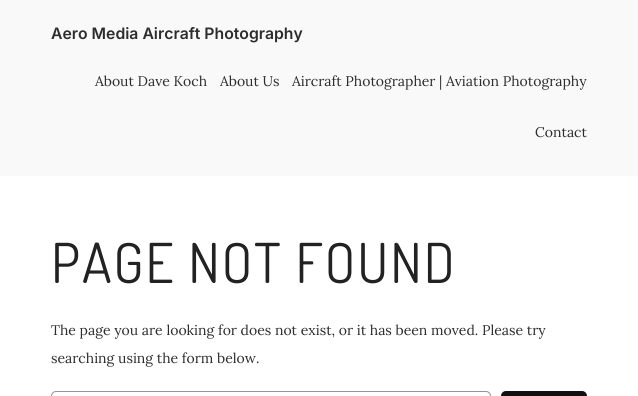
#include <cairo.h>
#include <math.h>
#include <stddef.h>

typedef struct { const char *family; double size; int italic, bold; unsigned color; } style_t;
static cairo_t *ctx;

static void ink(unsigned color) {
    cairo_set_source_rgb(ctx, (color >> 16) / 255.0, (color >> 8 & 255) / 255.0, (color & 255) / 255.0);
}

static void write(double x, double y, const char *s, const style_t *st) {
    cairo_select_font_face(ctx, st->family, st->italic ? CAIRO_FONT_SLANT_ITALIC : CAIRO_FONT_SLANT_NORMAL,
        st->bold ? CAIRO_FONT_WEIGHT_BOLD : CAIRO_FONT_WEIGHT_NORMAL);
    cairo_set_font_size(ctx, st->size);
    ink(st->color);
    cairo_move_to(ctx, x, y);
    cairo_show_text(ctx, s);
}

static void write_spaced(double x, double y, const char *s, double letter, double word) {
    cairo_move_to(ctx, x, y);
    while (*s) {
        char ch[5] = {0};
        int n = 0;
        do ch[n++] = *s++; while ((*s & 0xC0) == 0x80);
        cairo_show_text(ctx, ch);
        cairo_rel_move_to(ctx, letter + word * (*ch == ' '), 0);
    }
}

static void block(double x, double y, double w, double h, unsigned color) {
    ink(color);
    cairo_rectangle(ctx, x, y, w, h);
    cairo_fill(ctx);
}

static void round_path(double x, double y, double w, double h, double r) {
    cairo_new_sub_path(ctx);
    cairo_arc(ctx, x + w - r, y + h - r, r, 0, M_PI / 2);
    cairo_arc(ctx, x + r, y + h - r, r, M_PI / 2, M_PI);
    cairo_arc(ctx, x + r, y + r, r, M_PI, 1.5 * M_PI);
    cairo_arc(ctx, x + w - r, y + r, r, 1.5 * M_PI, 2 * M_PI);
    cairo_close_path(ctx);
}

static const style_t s1 = {"Inter SemiBold", 15.75, 0, 0, 0x2d2d2d};
static const style_t s2 = {"Lora", 14, 0, 0, 0x2d2d2d};

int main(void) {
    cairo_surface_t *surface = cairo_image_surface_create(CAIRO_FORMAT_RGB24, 638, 396);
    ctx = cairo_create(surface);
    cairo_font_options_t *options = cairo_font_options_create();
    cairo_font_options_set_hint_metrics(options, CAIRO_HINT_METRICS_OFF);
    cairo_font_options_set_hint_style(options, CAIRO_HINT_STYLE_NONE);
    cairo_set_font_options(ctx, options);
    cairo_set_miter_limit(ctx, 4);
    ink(0xffffff);
    cairo_paint(ctx);
    block(0, 0, 638, 176, 0xf9f9f9);
    write(51, 39, "Aero Media Aircraft Photography", &s1);
    write(95, 86, "About Dave Koch", &s2);
    write(220, 86, "About Us", &s2);
    write(292, 86, "Aircraft Photographer | Aviation Photography", &s2);
    write(535, 137, "Contact", &s2);
    cairo_select_font_face(ctx, "Dosis", CAIRO_FONT_SLANT_NORMAL, CAIRO_FONT_WEIGHT_NORMAL);
    cairo_set_font_size(ctx, 55);
    ink(0x222222);
    write_spaced(51, 283, "PAGE NOT FOUND", 2, 0);
    write(51, 335, "The page you are looking for does not exist, or it has been moved. Please try", &s2);
    write(51, 363, "searching using the form below.", &s2);
    round_path(51.5, 391.5, 439, 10, 4.5);
    ink(0x949494);
    cairo_set_line_width(ctx, 1);
    cairo_stroke(ctx);
    ink(0x111111);
    round_path(501, 391, 86, 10, 5);
    cairo_fill(ctx);
    cairo_surface_write_to_png(surface, "screenshot.png");
    cairo_font_options_destroy(options);
    cairo_destroy(ctx);
    cairo_surface_destroy(surface);
    return 0;
}
